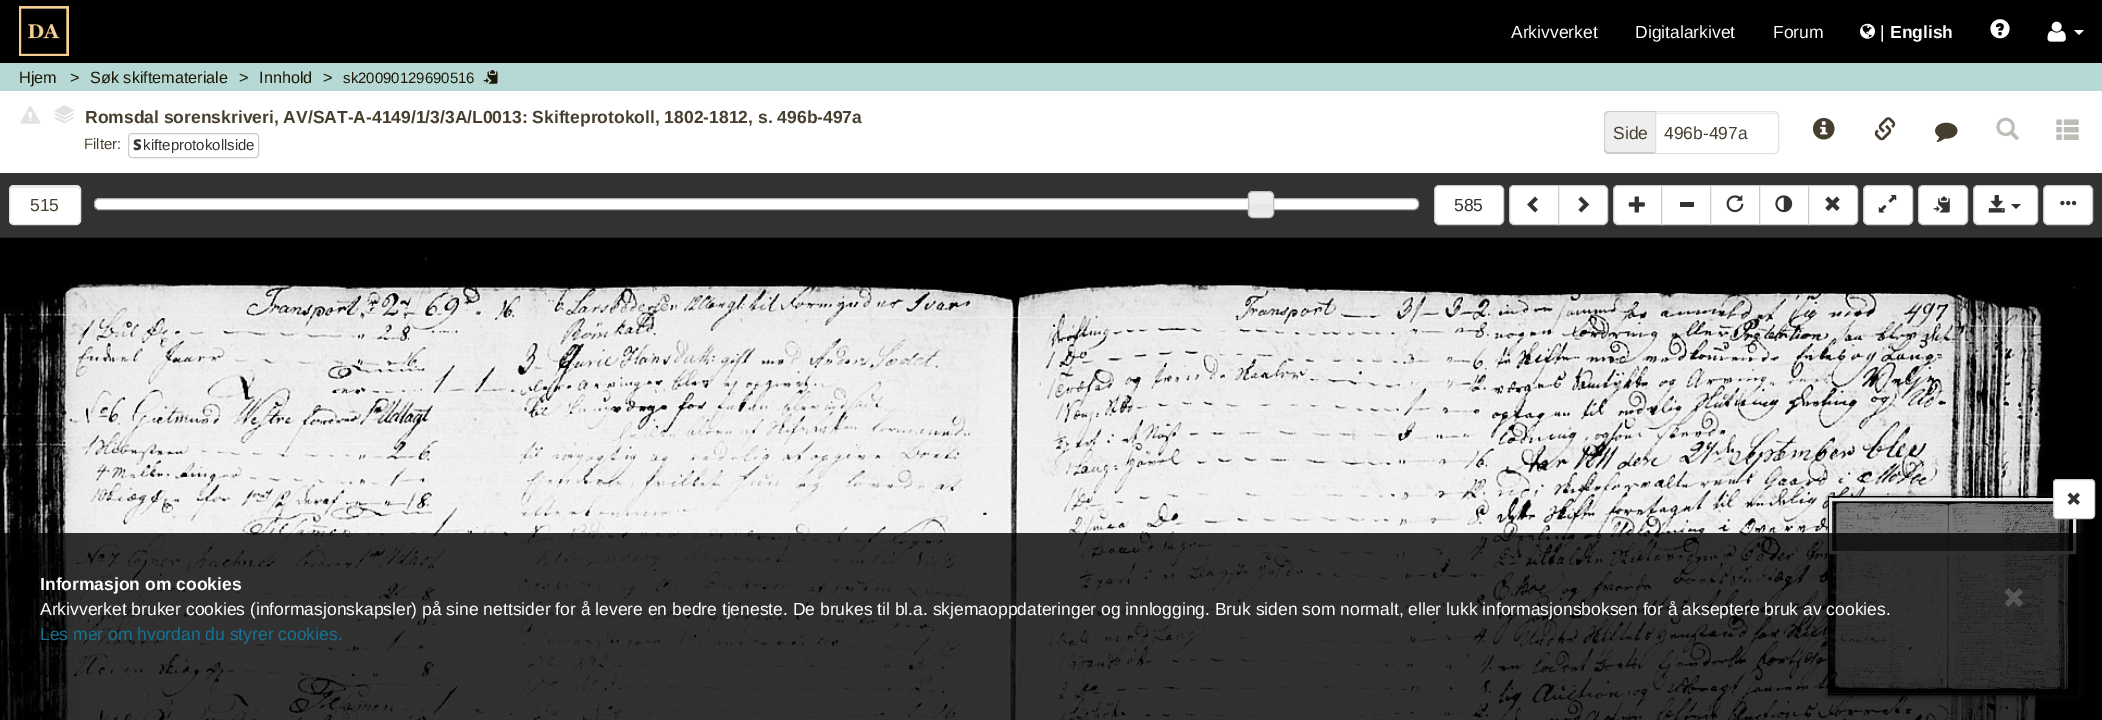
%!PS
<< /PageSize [2102 720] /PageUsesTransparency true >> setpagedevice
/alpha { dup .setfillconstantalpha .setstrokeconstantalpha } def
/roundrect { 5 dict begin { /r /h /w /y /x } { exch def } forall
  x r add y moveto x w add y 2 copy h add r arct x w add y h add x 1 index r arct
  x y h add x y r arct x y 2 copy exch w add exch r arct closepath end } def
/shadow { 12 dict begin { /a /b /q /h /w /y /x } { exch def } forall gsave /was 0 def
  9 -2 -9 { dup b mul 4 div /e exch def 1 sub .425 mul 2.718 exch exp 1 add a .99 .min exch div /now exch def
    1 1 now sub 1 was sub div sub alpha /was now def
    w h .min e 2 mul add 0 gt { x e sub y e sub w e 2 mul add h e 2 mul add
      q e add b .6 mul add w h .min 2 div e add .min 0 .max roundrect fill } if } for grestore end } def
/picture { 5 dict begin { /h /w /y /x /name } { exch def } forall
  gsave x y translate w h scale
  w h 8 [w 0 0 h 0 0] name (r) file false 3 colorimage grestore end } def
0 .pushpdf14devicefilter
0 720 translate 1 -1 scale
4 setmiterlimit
0.714 0.851 0.839 setrgbcolor
0 0 2102 720 rectfill
0 setgray
0 0 2102 63 rectfill
(img1.rgb) 19 6 50 50 picture
/LiberationSans-Regular [17.5 0 0 -17.5 0 0] selectfont
1 setgray
1511 38 moveto (Arkivverket) show
1635 38 moveto (Digitalarkivet) show
1773 38 moveto (Forum) show
(img2.rgb) 1860 23 15 16 picture
1880 38 moveto (|) show
/LiberationSans-Bold [17.5 0 0 -17.5 0 0] selectfont
1890 38 moveto (English) show
(img3.rgb) 1990 19 20 20 picture
(img4.rgb) 2047 21 19 21 picture
newpath 2074 30 moveto 2084 30 lineto 2079 35 lineto closepath fill
/LiberationSans-Regular [16.25 0 0 -16.25 0 0] selectfont
0.114 0.09 0.02 setrgbcolor
19 83 moveto (Hjem) show
70 83 moveto (>) show
90 83 moveto (Søk skiftemateriale) show
239 83 moveto (>) show
259 83 moveto (Innhold) show
323 83 moveto (>) show
/LiberationSans-Regular [15 0 0 -15 0 0] selectfont
343 83 moveto (sk20090129690516) show
(img5.rgb) 483 70 15 14 picture
1 setgray
0 91 2102 82 rectfill
(img6.rgb) 20 105 21 19 picture
(img11.rgb) 54 116 21 8 picture
(img10.rgb) 56 115 17 6 picture
(img9.rgb) 54 113 20 7 picture
(img8.rgb) 56 111 17 7 picture
(img7.rgb) 54 105 21 11 picture
/LiberationSans-Bold [17.5 0 0 -17.5 0 0] selectfont
0.275 0.243 0.184 setrgbcolor
85 123 moveto (Romsdal sorenskriveri, AV/SAT-A-4149/1/3/3A/L0013: Skifteprotokoll, 1802-1812, s. 496b-497a) show
/LiberationSans-Regular [15 0 0 -15 0 0] selectfont
84 149 moveto (Filter:) show
0.8 setgray
128.5 133.5 130 24 3.5 roundrect stroke
/NotoSans-Black [15 0 0 -15 0 0] selectfont
0.2 setgray
133 150 moveto (S) show
/LiberationSans-Regular [15 0 0 -15 0 0] selectfont
143 150 moveto (kifteprotokollside) show
0.933 setgray
newpath 1609 111 moveto 1655 111 lineto 1655 154 lineto 1609 154 lineto 1606 154 1604 152 1604 149 curveto 1604 116 lineto 1604 113 1606 111 1609 111 curveto closepath fill
0.8 setgray
newpath 1609 111 moveto 1655 111 lineto 1655 154 lineto 1609 154 lineto 1606 154 1604 152 1604 149 curveto 1604 116 lineto 1604 113 1606 111 1609 111 curveto closepath 1609 112 moveto 1655 112 lineto 1655 152 lineto 1609 152 lineto 1607 152 1605 151 1605 149 curveto 1605 116 lineto 1605 114 1607 112 1609 112 curveto closepath eofill
/LiberationSans-Regular [17.5 0 0 -17.5 0 0] selectfont
0.275 0.243 0.184 setrgbcolor
1613 139 moveto (Side) show
0.925 setgray
newpath 1656 114 moveto 1774 114 lineto 1776 114 1778 115 1778 118 curveto 1778 117 lineto 1778 115 1776 113 1774 113 curveto 1656 113 lineto closepath fill
0.89 0.886 0.878 setrgbcolor
newpath 1655.5 111.5 moveto 1774 111.5 lineto 1776.5 111.5 1778.5 113.5 1778.5 116 curveto 1778.5 149 lineto 1778.5 151.5 1776.5 153.5 1774 153.5 curveto 1655.5 153.5 lineto closepath stroke
0.275 0.243 0.184 setrgbcolor
1664 139 moveto (496b-497a) show
(img12.rgb) 1812 117 23 23 picture
(img13.rgb) 1874 117 22 24 picture
(img14.rgb) 1935 122 23 20 picture
(img15.rgb) 1996 117 23 24 picture
(img16.rgb) 2056 119 23 21 picture
0.2 0.196 0.192 setrgbcolor
0 173 2102 65 rectfill
1 setgray
9 185 72 40 5 roundrect fill
0.925 setgray
newpath 14 188 moveto 76 188 lineto 78 188 80 189 80 191 curveto 80 184 71 186 66 186 curveto 24 186 lineto 19 186 10 184 10 191 curveto 10 189 12 188 14 188 curveto closepath fill
0.89 0.886 0.878 setrgbcolor
9.5 185.5 71 39 4.5 roundrect stroke
0.275 0.243 0.184 setrgbcolor
30 211 moveto (515) show
1 setgray
94.5 198.5 1324 11 4.5 roundrect gsave fill grestore
0.667 setgray
stroke
(img17.rgb) 1247 191 27 27 picture
0.749 0.745 0.741 setrgbcolor
1248.5 191.5 25 26 4.5 roundrect stroke
1 setgray
1434.5 185.5 69 39 4.5 roundrect gsave fill grestore
0.8 setgray
stroke
0.2 setgray
1454 211 moveto (585) show
1 setgray
newpath 1514 185.5 moveto 1558.5 185.5 lineto 1558.5 224.5 lineto 1514 224.5 lineto 1511.5 224.5 1509.5 222.5 1509.5 220 curveto 1509.5 190 lineto 1509.5 187.5 1511.5 185.5 1514 185.5 curveto closepath gsave fill grestore
0.8 setgray
stroke
(img18.rgb) 1527 196 11 17 picture
1 setgray
newpath 1558.5 185.5 moveto 1603 185.5 lineto 1605.5 185.5 1607.5 187.5 1607.5 190 curveto 1607.5 220 lineto 1607.5 222.5 1605.5 224.5 1603 224.5 curveto 1558.5 224.5 lineto closepath gsave fill grestore
0.8 setgray
stroke
(img19.rgb) 1578 196 12 17 picture
1 setgray
newpath 1618 185.5 moveto 1662.5 185.5 lineto 1662.5 224.5 lineto 1618 224.5 lineto 1615.5 224.5 1613.5 222.5 1613.5 220 curveto 1613.5 190 lineto 1613.5 187.5 1615.5 185.5 1618 185.5 curveto closepath gsave fill grestore
0.8 setgray
stroke
(img20.rgb) 1628 196 17 17 picture
1 setgray
newpath 1661.5 185.5 moveto 1710.5 185.5 lineto 1710.5 224.5 lineto 1661.5 224.5 lineto closepath gsave fill grestore
0.8 setgray
stroke
0.2 setgray
1680 202 14 5 rectfill
1 setgray
newpath 1710.5 185.5 moveto 1759.5 185.5 lineto 1759.5 224.5 lineto 1710.5 224.5 lineto closepath gsave fill grestore
0.8 setgray
stroke
(img21.rgb) 1726 195 18 18 picture
1 setgray
newpath 1759.5 185.5 moveto 1808.5 185.5 lineto 1808.5 224.5 lineto 1759.5 224.5 lineto closepath gsave fill grestore
0.8 setgray
stroke
(img22.rgb) 1775 195 18 18 picture
1 setgray
newpath 1808.5 185.5 moveto 1853 185.5 lineto 1855.5 185.5 1857.5 187.5 1857.5 190 curveto 1857.5 220 lineto 1857.5 222.5 1855.5 224.5 1853 224.5 curveto 1808.5 224.5 lineto closepath gsave fill grestore
0.8 setgray
stroke
(img23.rgb) 1825 196 15 15 picture
1 setgray
1863.5 185.5 49 39 4.5 roundrect gsave fill grestore
0.8 setgray
stroke
(img24.rgb) 1878 195 19 18 picture
1 setgray
1918.5 185.5 49 39 4.5 roundrect gsave fill grestore
0.8 setgray
stroke
(img25.rgb) 1933 196 17 17 picture
1 setgray
1973.5 185.5 64 39 4.5 roundrect gsave fill grestore
0.8 setgray
stroke
(img26.rgb) 1988 195 17 18 picture
0.2 setgray
newpath 2011 204 moveto 2021 204 lineto 2016 209 lineto closepath fill
1 setgray
2043.5 185.5 49 39 4.5 roundrect gsave fill grestore
0.8 setgray
stroke
(img27.rgb) 2060 200 17 6 picture
(img28.rgb) 0 237 2102 483 picture
gsave
newpath 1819 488 moveto 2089 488 lineto 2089 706 lineto 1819 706 lineto closepath 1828 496 moveto 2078 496 lineto 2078 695 lineto 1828 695 lineto closepath eoclip newpath
0.196 setgray
1829 498 250 198 0 3 1 shadow
grestore
0 setgray
1828.5 496.5 249 198 rectstroke
(img29.rgb) 1828 497 244 197 picture
0.5 alpha
1829 502 241 52 rectfill
0.9 alpha
1 setgray
3 setlinewidth
1830.5 499.5 244 53 rectstroke
1 alpha
0 setgray
2053 480 42 40 4 0.5 0.1 shadow
1 setgray
2053.5 479.5 41 39 3.5 roundrect gsave fill grestore
0.8 setgray
1 setlinewidth
stroke
(img30.rgb) 2067 492 13 13 picture
0.8 alpha
0 setgray
0 533 2084 187 rectfill
/LiberationSans-Bold [17.5 0 0 -17.5 0 0] selectfont
1 alpha
1 setgray
40 590 moveto (Informasjon om cookies) show
(img31.rgb) 2004 588 19 19 picture
/LiberationSans-Regular [17.5 0 0 -17.5 0 0] selectfont
40 615 moveto (Arkivverket bruker cookies \(informasjonskapsler\) på sine nettsider for å levere en bedre tjeneste. De brukes til bl.a. skjemaoppdateringer og innlogging. Bruk siden som normalt, eller lukk informasjonsboksen for å akseptere bruk av cookies.) show
0.09 0.451 0.569 setrgbcolor
40 640 moveto (Les mer om hvordan du styrer cookies.) show
.poppdf14devicefilter showpage
